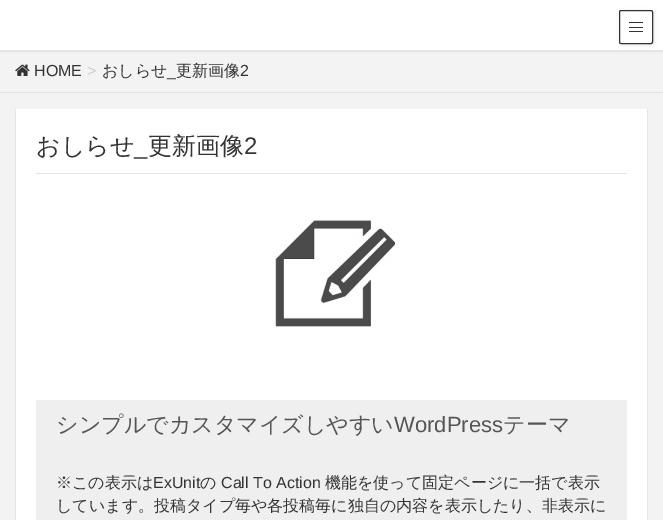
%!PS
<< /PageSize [663 520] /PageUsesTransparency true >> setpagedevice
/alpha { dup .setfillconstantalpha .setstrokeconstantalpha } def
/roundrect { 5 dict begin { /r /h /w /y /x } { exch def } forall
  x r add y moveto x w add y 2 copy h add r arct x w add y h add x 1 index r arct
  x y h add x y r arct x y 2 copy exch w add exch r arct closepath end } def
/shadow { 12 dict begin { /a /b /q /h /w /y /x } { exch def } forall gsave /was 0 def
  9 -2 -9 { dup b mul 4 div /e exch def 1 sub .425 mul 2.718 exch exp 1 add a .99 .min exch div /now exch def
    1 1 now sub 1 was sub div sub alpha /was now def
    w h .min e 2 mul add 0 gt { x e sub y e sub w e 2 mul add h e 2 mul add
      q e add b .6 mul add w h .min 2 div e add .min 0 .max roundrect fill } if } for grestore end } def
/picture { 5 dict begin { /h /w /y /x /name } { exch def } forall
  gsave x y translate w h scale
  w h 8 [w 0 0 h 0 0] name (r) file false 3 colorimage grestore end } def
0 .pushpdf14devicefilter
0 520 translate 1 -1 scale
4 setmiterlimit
0.953 setgray
0 0 663 520 rectfill
0 setgray
0 1 663 50 0 1.5 0.1 shadow
1 setgray
0 0 663 50 rectfill
0 setgray
620 11 34 34 2 2 0.1 shadow
1 setgray
619 10 34 34 2 roundrect fill
0.2 setgray
629 22 14 1 rectfill
629 27 14 1 rectfill
629 31 14 1 rectfill
619.5 10.5 33 33 1.5 roundrect stroke
0.898 setgray
0 92 663 1 rectfill
(img1.rgb) 15 64 15 12 picture
/LiberationSans-Regular [16 0 0 -16 0 0] selectfont
0.2 setgray
34 76 moveto (HOME) show
0.8 setgray
87 76 moveto (>) show
/WenQuanYiZenHei-Medium [16 0 0 -16 0 0] selectfont
0.2 setgray
102 76 moveto (おしらせ) show
/LiberationSans-Regular [16 0 0 -16 0 0] selectfont
167 76 moveto (_) show
/WenQuanYiZenHei-Medium [16 0 0 -16 0 0] selectfont
176 76 moveto (更新画像) show
/LiberationSans-Regular [16 0 0 -16 0 0] selectfont
240 76 moveto (2) show
1 setgray
16 109 631 411 rectfill
0.898 setgray
647 109 1 411 rectfill
15 109 1 411 rectfill
36 173 591 1 rectfill
/WenQuanYiZenHei-Medium [24 0 0 -24 0 0] selectfont
0.2 setgray
36 154 moveto (おしらせ) show
148 154 moveto (更新画像) show
/LiberationSans-Regular [24 0 0 -24 0 0] selectfont
244 154 moveto (2) show
134 154 moveto (_) show
(img2.rgb) 275 220 120 107 picture
0.937 setgray
36 400 591 120 rectfill
/WenQuanYiZenHei-Medium [22 0 0 -22 0 0] selectfont
0.333 setgray
56 432 moveto (シンプルでカスタマイズしやすい) show
/LiberationSans-Regular [22 0 0 -22 0 0] selectfont
394 432 moveto (WordPress) show
/WenQuanYiZenHei-Medium [22 0 0 -22 0 0] selectfont
503 432 moveto (テーマ) show
/WenQuanYiZenHei-Medium [16 0 0 -16 0 0] selectfont
0.2 setgray
56 488 moveto (※この表示は) show
/LiberationSans-Regular [16 0 0 -16 0 0] selectfont
153 488 moveto (ExUnit) show
/WenQuanYiZenHei-Medium [16 0 0 -16 0 0] selectfont
200 488 moveto (の) show
/LiberationSans-Regular [16 0 0 -16 0 0] selectfont
221 488 moveto (Call To Action) show
/WenQuanYiZenHei-Medium [16 0 0 -16 0 0] selectfont
325 488 moveto (機能を使って固定ページに一括で表示) show
56 511 moveto (しています。投稿タイプ毎や各投稿毎に独自の内容を表示したり、非表示に) show
.poppdf14devicefilter showpage
